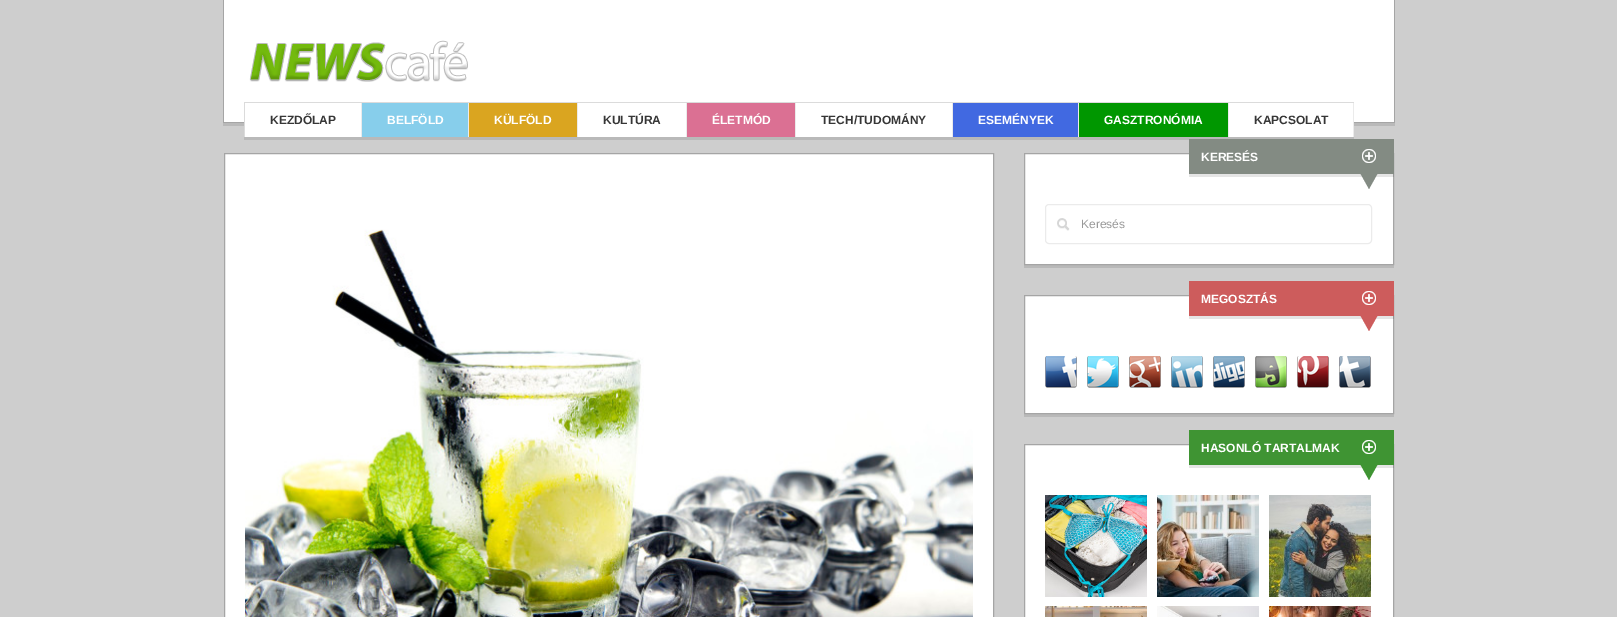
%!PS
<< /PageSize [1617 617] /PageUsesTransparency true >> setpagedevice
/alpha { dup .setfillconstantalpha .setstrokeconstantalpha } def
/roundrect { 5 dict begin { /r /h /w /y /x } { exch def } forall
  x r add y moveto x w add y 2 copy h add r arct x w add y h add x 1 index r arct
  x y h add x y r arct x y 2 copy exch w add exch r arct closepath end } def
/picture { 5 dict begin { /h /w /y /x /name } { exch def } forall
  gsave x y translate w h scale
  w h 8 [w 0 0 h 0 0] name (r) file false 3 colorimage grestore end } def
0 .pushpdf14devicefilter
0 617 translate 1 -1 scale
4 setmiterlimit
0.808 setgray
0 0 1617 617 rectfill
0.725 setgray
223 123 1172 3 rectfill
1 setgray
224 0 1170 122 rectfill
0.647 setgray
1394 0 1 123 rectfill
223 122 1172 1 rectfill
223 0 1 123 rectfill
(img1.rgb) 249 40 219 42 picture
0.725 setgray
244 137 1110 3 rectfill
1 setgray
245 122 1108 15 rectfill
0.859 setgray
244 102 1110 1 rectfill
244 102 1 35 rectfill
0.922 setgray
361 103 1 34 rectfill
/LiberationSans-Bold [12 0 0 -12 0 0] selectfont
0.212 setgray
270 124 moveto (KEZDŐLAP) show
0.529 0.808 0.922 setrgbcolor
362 103 106 34 rectfill
0.922 setgray
468 103 1 34 rectfill
1 setgray
387 124 moveto (BELFÖLD) show
0.855 0.647 0.125 setrgbcolor
469 103 108 34 rectfill
0.922 setgray
577 103 1 34 rectfill
1 setgray
494 124 moveto (KÜLFÖLD) show
0.922 setgray
686 103 1 34 rectfill
0.212 setgray
603 124 moveto (KULTÚRA) show
0.859 0.439 0.576 setrgbcolor
687 103 108 34 rectfill
0.922 setgray
795 103 1 34 rectfill
1 setgray
712 124 moveto (ÉLETMÓD) show
0.922 setgray
952 103 1 34 rectfill
0.212 setgray
821 124 moveto (TECH/TUDOMÁNY) show
0.255 0.412 0.882 setrgbcolor
953 103 125 34 rectfill
0.922 setgray
1078 103 1 34 rectfill
1 setgray
978 124 moveto (ESEMÉNYEK) show
0 0.592 0 setrgbcolor
1079 103 149 34 rectfill
0.922 setgray
1228 103 1 34 rectfill
1 setgray
1104 124 moveto (GASZTRONÓMIA) show
0.922 setgray
1353 103 1 34 rectfill
0.212 setgray
1254 124 moveto (KAPCSOLAT) show
1 setgray
newpath 224.5 153.5 moveto 993.5 153.5 lineto 993.5 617.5 lineto 224.5 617.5 lineto closepath gsave fill grestore
0.647 setgray
stroke
(img2.rgb) 245 229 728 388 picture
0.725 setgray
1024 265 370 3 rectfill
1 setgray
newpath 1024.5 153.5 moveto 1393.5 153.5 lineto 1393.5 264.5 lineto 1024.5 264.5 lineto closepath gsave fill grestore
0.647 setgray
stroke
0.1 alpha
0 setgray
1189 174 205 3 rectfill
1 alpha
0.514 0.545 0.514 setrgbcolor
1189 139 205 35 rectfill
1 setgray
1201 161 moveto (KERESÉS) show
(img3.rgb) 1362 149 14 14 picture
0.514 0.545 0.514 setrgbcolor
newpath 1359 171 moveto 1379 171 lineto 1369 189 lineto closepath fill
(img4.rgb) 1057 218 13 13 picture
0.922 setgray
1045.5 204.5 326 39 3.5 roundrect stroke
/LiberationSans-Regular [12 0 0 -12 0 0] selectfont
0.6 setgray
1081 228 moveto (Keresés) show
0.725 setgray
1024 414 370 3 rectfill
1 setgray
newpath 1024.5 295.5 moveto 1393.5 295.5 lineto 1393.5 413.5 lineto 1024.5 413.5 lineto closepath gsave fill grestore
0.647 setgray
stroke
0.1 alpha
0 setgray
1189 316 205 3 rectfill
1 alpha
0.804 0.361 0.361 setrgbcolor
1189 281 205 35 rectfill
/LiberationSans-Bold [12 0 0 -12 0 0] selectfont
1 setgray
1201 303 moveto (MEGOSZTÁS) show
(img5.rgb) 1362 291 14 14 picture
0.804 0.361 0.361 setrgbcolor
newpath 1359 313 moveto 1379 313 lineto 1369 331 lineto closepath fill
(img6.rgb) 1045 356 32 32 picture
(img7.rgb) 1087 356 32 32 picture
(img8.rgb) 1129 356 32 32 picture
(img9.rgb) 1171 356 32 32 picture
(img10.rgb) 1213 356 32 32 picture
(img11.rgb) 1255 356 32 32 picture
(img12.rgb) 1297 356 32 32 picture
(img13.rgb) 1339 356 32 32 picture
1 setgray
newpath 1024.5 444.5 moveto 1393.5 444.5 lineto 1393.5 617.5 lineto 1024.5 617.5 lineto closepath gsave fill grestore
0.647 setgray
stroke
0.1 alpha
0 setgray
1189 465 205 3 rectfill
1 alpha
0.247 0.58 0.2 setrgbcolor
1189 430 205 35 rectfill
1 setgray
1201 452 moveto (HASONLÓ TARTALMAK) show
(img14.rgb) 1362 440 14 14 picture
0.247 0.58 0.2 setrgbcolor
newpath 1359 462 moveto 1379 462 lineto 1369 480 lineto closepath fill
(img15.rgb) 1045 495 102 102 picture
(img16.rgb) 1157 495 102 102 picture
(img17.rgb) 1269 495 102 102 picture
(img18.rgb) 1045 606 102 11 picture
(img19.rgb) 1157 606 102 11 picture
(img20.rgb) 1269 606 102 11 picture
.poppdf14devicefilter showpage
